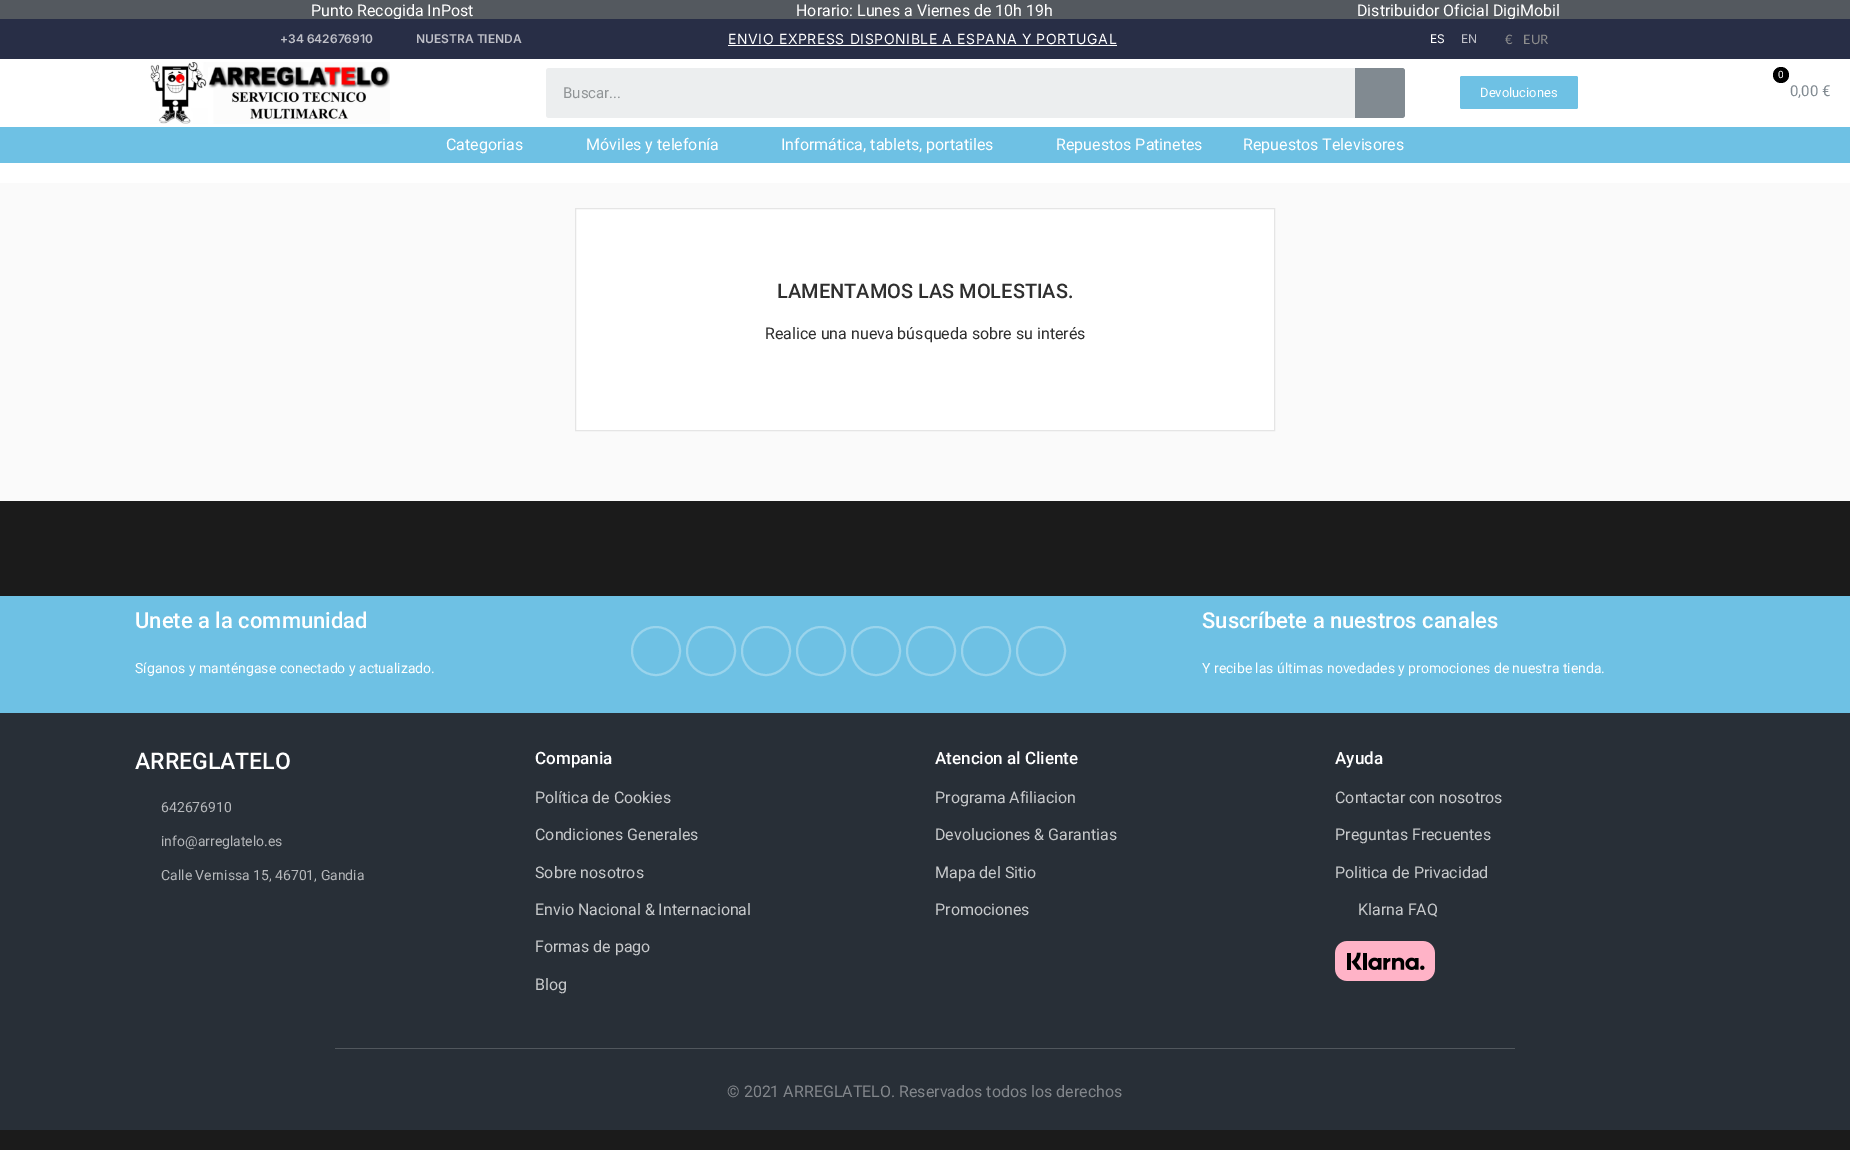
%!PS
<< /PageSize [1850 1150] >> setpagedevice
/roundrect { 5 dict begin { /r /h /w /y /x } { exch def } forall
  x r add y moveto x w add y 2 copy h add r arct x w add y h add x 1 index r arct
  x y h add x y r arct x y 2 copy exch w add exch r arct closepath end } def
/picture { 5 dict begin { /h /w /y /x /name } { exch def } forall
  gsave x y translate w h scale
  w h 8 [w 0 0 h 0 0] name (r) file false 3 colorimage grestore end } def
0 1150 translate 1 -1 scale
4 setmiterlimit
0.98 setgray
0 0 1850 1150 rectfill
1 setgray
0 59 1850 124 rectfill
0.329 0.349 0.373 setrgbcolor
0 0 1850 19 rectfill
/Roboto-Regular [16 0 0 -16 0 0] selectfont
1 setgray
311 16 moveto (Punto Recogida InPost) show
796 16 moveto (Horario: Lunes a Viernes de 10h 19h) show
1357 16 moveto (Distribuidor Oficial DigiMobil) show
0.157 0.18 0.275 setrgbcolor
0 19 1850 40 rectfill
/Inter-SemiBold [12 0 0 -12 0 0] selectfont
0.749 0.753 0.784 setrgbcolor
280 43 moveto (+34 642676910) show
416 43 moveto (NUESTRA TIENDA) show
/Inter-Regular [14 0 0 -14 0 0] selectfont
1 setgray
728 44 moveto 0.6 0 (ENVIO EXPRESS DISPONIBLE A ESPANA Y PORTUGAL) ashow
728 45 389 1 rectfill
/Inter-Regular [12 0 0 -12 0 0] selectfont
1430 43 moveto (ES) show
0.749 0.753 0.784 setrgbcolor
1461 43 moveto (EN) show
/Lato-Regular [13 0 0 -13 0 0] selectfont
0.557 setgray
1505 44 moveto (€) show
1523 44 moveto (EUR) show
(img1.rgb) 150 62 240 62 picture
0.925 0.933 0.937 setrgbcolor
546 68 859 50 3 roundrect fill
/Roboto-Regular [15 0 0 -15 0 0] selectfont
0.569 0.584 0.592 setrgbcolor
563 98 moveto (Buscar...) show
0.506 0.541 0.569 setrgbcolor
newpath 1355 68 moveto 1402 68 lineto 1403.5 68 1405 69.5 1405 71 curveto 1405 115 lineto 1405 116.5 1403.5 118 1402 118 curveto 1355 118 lineto closepath fill
0.431 0.757 0.894 setrgbcolor
1460 76 118 33 2 roundrect fill
/Roboto-Regular [13 0 0 -13 0 0] selectfont
1 setgray
1480 97 moveto (Devoluciones) show
0 setgray
newpath 1781 75 8 0 360 arc closepath fill
/Roboto-Regular [10 0 0 -10 0 0] selectfont
1 setgray
1778 78 moveto (0) show
/Roboto-Regular [15 0 0 -15 0 0] selectfont
0.506 0.541 0.569 setrgbcolor
1790 96 moveto (0,00 €) show
0.431 0.757 0.894 setrgbcolor
0 127 1850 36 rectfill
/Roboto-Regular [16 0 0 -16 0 0] selectfont
1 setgray
446 150 moveto (Categorias) show
586 150 moveto (Móviles y telefonía) show
781 150 moveto (Informática, tablets, portatiles) show
1056 150 moveto (Repuestos Patinetes) show
1243 150 moveto (Repuestos Televisores) show
newpath 575.5 208.5 moveto 1274.5 208.5 lineto 1274.5 430.5 lineto 575.5 430.5 lineto closepath gsave fill grestore
0.898 setgray
stroke
/Roboto-Medium [20 0 0 -20 0 0] selectfont
0.184 setgray
777 298 moveto (LAMENTAMOS LAS MOLESTIAS.) show
/Roboto-Regular [16 0 0 -16 0 0] selectfont
765 339 moveto (Realice una nueva búsqueda sobre su interés) show
0.106 setgray
0 501 1850 649 rectfill
0.431 0.757 0.894 setrgbcolor
0 596 1850 117 rectfill
/Roboto-Medium [22 0 0 -22 0 0] selectfont
1 setgray
135 628 moveto (Unete a la communidad) show
/Roboto-Regular [14 0 0 -14 0 0] selectfont
135 673 moveto (Síganos y manténgase conectado y actualizado.) show
0.604 0.831 0.925 setrgbcolor
2 setlinewidth
newpath 656 651 24 0 360 arc closepath stroke
newpath 711 651 24 0 360 arc closepath stroke
newpath 766 651 24 0 360 arc closepath stroke
newpath 821 651 24 0 360 arc closepath stroke
newpath 876 651 24 0 360 arc closepath stroke
newpath 931 651 24 0 360 arc closepath stroke
newpath 986 651 24 0 360 arc closepath stroke
newpath 1041 651 24 0 360 arc closepath stroke
/Roboto-Medium [22 0 0 -22 0 0] selectfont
1 setgray
1202 628 moveto (Suscríbete a nuestros canales) show
/Roboto-Regular [14 0 0 -14 0 0] selectfont
1202 673 moveto (Y recibe las últimas novedades y promociones de nuestra tienda.) show
0.157 0.184 0.216 setrgbcolor
0 713 1850 417 rectfill
/Roboto-Medium [23 0 0 -23 0 0] selectfont
1 setgray
135 769 moveto (ARREGLATELO) show
/Roboto-Regular [14 0 0 -14 0 0] selectfont
0.714 0.722 0.733 setrgbcolor
161 812 moveto (642676910) show
161 846 moveto (info@arreglatelo.es) show
161 880 moveto (Calle Vernissa 15, 46701, Gandia) show
/Roboto-Medium [17 0 0 -17 0 0] selectfont
1 setgray
535 764 moveto (Compania) show
/Roboto-Regular [16 0 0 -16 0 0] selectfont
0.78 0.788 0.796 setrgbcolor
535 803 moveto (Política de Cookies) show
535 840 moveto (Condiciones Generales) show
535 878 moveto (Sobre nosotros) show
535 915 moveto (Envio Nacional & Internacional) show
535 952 moveto (Formas de pago) show
535 990 moveto (Blog) show
/Roboto-Medium [17 0 0 -17 0 0] selectfont
1 setgray
935 764 moveto (Atencion al Cliente) show
/Roboto-Regular [16 0 0 -16 0 0] selectfont
0.78 0.788 0.796 setrgbcolor
935 803 moveto (Programa Afiliacion) show
935 840 moveto (Devoluciones & Garantias) show
935 878 moveto (Mapa del Sitio) show
935 915 moveto (Promociones) show
/Roboto-Medium [17 0 0 -17 0 0] selectfont
1 setgray
1335 764 moveto (Ayuda) show
/Roboto-Regular [16 0 0 -16 0 0] selectfont
0.78 0.788 0.796 setrgbcolor
1335 803 moveto (Contactar con nosotros) show
1335 840 moveto (Preguntas Frecuentes) show
1335 878 moveto (Politica de Privacidad) show
1358 915 moveto (Klarna FAQ) show
(img2.rgb) 1335 941 100 40 picture
0.318 0.341 0.365 setrgbcolor
335 1048 1180 1 rectfill
0.51 0.525 0.545 setrgbcolor
727 1097 moveto (© 2021 ARREGLATELO. Reservados todos los derechos) show
showpage
